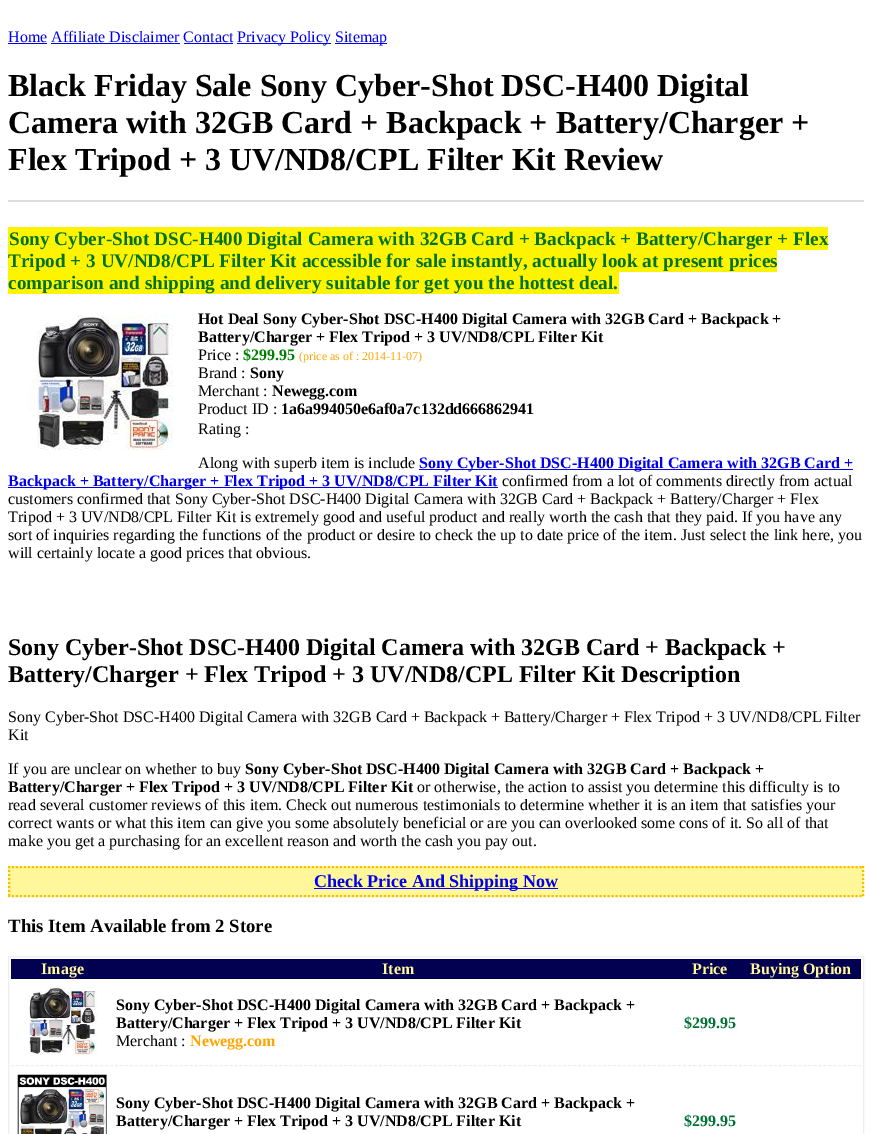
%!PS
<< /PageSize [872 1134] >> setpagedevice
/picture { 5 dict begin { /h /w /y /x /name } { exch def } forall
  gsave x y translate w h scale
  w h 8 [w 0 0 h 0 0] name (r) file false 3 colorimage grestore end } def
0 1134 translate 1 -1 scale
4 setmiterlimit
1 setgray
0 0 872 1134 rectfill
/LiberationSerif-Regular [16 0 0 -16 0 0] selectfont
0 0 0.933 setrgbcolor
8 42 moveto (Home Affiliate Disclaimer Contact) show
8 43 39 1 rectfill
237 43 94 1 rectfill
237 42 moveto (Privacy Policy) show
335 43 52 1 rectfill
335 42 moveto (Sitemap) show
51 43 129 1 rectfill
184 43 49 1 rectfill
/LiberationSerif-Bold [32 0 0 -32 0 0] selectfont
0 setgray
8 96 moveto (Black Friday Sale Sony Cyber-Shot DSC-H400 Digital) show
8 133 moveto (Camera with 32GB Card + Backpack + Battery/Charger +) show
8 170 moveto (Flex Tripod + 3 UV/ND8/CPL Filter Kit Review) show
0.867 setgray
8 200 856 2 rectfill
1 0.957 0 setrgbcolor
8 227 820 23 rectfill
/LiberationSerif-Bold [19.2 0 0 -19.2 0 0] selectfont
0 0.447 0.133 setrgbcolor
9 245 moveto (Sony Cyber-Shot DSC-H400 Digital Camera with 32GB Card + Backpack + Battery/Charger + Flex) show
1 0.957 0 setrgbcolor
8 250 769 22 rectfill
0 0.447 0.133 setrgbcolor
8 267 moveto (Tripod + 3 UV/ND8/CPL Filter Kit accessible for sale instantly, actually look at present prices) show
1 0.957 0 setrgbcolor
8 272 611 22 rectfill
0 0.447 0.133 setrgbcolor
8 289 moveto (comparison and shipping and delivery suitable for get you the hottest deal.) show
(img1.rgb) 29 315 144 135 picture
/LiberationSerif-Bold [16 0 0 -16 0 0] selectfont
0 setgray
198 324 moveto (Hot Deal Sony Cyber-Shot DSC-H400 Digital Camera with 32GB Card + Backpack +) show
198 342 moveto (Battery/Charger + Flex Tripod + 3 UV/ND8/CPL Filter Kit) show
/LiberationSerif-Regular [16 0 0 -16 0 0] selectfont
198 360 moveto (Price :) show
/LiberationSerif-Bold [16 0 0 -16 0 0] selectfont
0 0.502 0 setrgbcolor
243 360 moveto ($299.95) show
/LiberationSerif-Regular [12 0 0 -12 0 0] selectfont
1 0.647 0 setrgbcolor
299 360 moveto (\(price as of : 2014-11-07\)) show
/LiberationSerif-Regular [16 0 0 -16 0 0] selectfont
0 setgray
198 378 moveto (Brand :) show
/LiberationSerif-Bold [16 0 0 -16 0 0] selectfont
250 378 moveto (Sony) show
/LiberationSerif-Regular [16 0 0 -16 0 0] selectfont
198 396 moveto (Merchant :) show
/LiberationSerif-Bold [16 0 0 -16 0 0] selectfont
272 396 moveto (Newegg.com) show
/LiberationSerif-Regular [16 0 0 -16 0 0] selectfont
198 414 moveto (Product ID :) show
/LiberationSerif-Bold [16 0 0 -16 0 0] selectfont
281 414 moveto (1a6a994050e6af0a7c132dd666862941) show
/LiberationSerif-Regular [16 0 0 -16 0 0] selectfont
198 434 moveto (Rating :) show
198 468 moveto (Along with superb item is include) show
0 0 0.933 setrgbcolor
419 469 434 1 rectfill
/LiberationSerif-Bold [16 0 0 -16 0 0] selectfont
419 468 moveto (Sony Cyber-Shot DSC-H400 Digital Camera with 32GB Card +) show
8 487 490 1 rectfill
8 486 moveto (Backpack + Battery/Charger + Flex Tripod + 3 UV/ND8/CPL Filter Kit) show
/LiberationSerif-Regular [16 0 0 -16 0 0] selectfont
0 setgray
502 486 moveto (confirmed from a lot of comments directly from actual) show
8 504 moveto (customers confirmed that Sony Cyber-Shot DSC-H400 Digital Camera with 32GB Card + Backpack + Battery/Charger + Flex) show
8 522 moveto (Tripod + 3 UV/ND8/CPL Filter Kit is extremely good and useful product and really worth the cash that they paid. If you have any) show
8 540 moveto (sort of inquiries regarding the functions of the product or desire to check the up to date price of the item. Just select the link here, you) show
8 558 moveto (will certainly locate a good prices that obvious.) show
/LiberationSerif-Bold [24 0 0 -24 0 0] selectfont
8 655 moveto (Sony Cyber-Shot DSC-H400 Digital Camera with 32GB Card + Backpack +) show
8 682 moveto (Battery/Charger + Flex Tripod + 3 UV/ND8/CPL Filter Kit Description) show
/LiberationSerif-Regular [16 0 0 -16 0 0] selectfont
8 722 moveto (Sony Cyber-Shot DSC-H400 Digital Camera with 32GB Card + Backpack + Battery/Charger + Flex Tripod + 3 UV/ND8/CPL Filter) show
8 740 moveto (Kit) show
8 774 moveto (If you are unclear on whether to buy) show
/LiberationSerif-Bold [16 0 0 -16 0 0] selectfont
245 774 moveto (Sony Cyber-Shot DSC-H400 Digital Camera with 32GB Card + Backpack +) show
8 792 moveto (Battery/Charger + Flex Tripod + 3 UV/ND8/CPL Filter Kit) show
/LiberationSerif-Regular [16 0 0 -16 0 0] selectfont
417 792 moveto (or otherwise, the action to assist you determine this difficulty is to) show
8 810 moveto (read several customer reviews of this item. Check out numerous testimonials to determine whether it is an item that satisfies your) show
8 828 moveto (correct wants or what this item can give you some absolutely beneficial or are you can overlooked some cons of it. So all of that) show
8 846 moveto (make you get a purchasing for an excellent reason and worth the cash you pay out.) show
1 0.969 0.6 setrgbcolor
8 866 856 31 rectfill
0.98 0.745 0 setrgbcolor
2 setlinewidth
[2 2] 0 setdash
newpath 8 867 moveto 864 867 lineto stroke
newpath 863 866 moveto 863 897 lineto stroke
newpath 8 896 moveto 864 896 lineto stroke
newpath 9 866 moveto 9 897 lineto stroke
0 0 0.933 setrgbcolor
314 888 244 1 rectfill
/LiberationSerif-Bold [18 0 0 -18 0 0] selectfont
314 887 moveto (Check Price And Shipping Now) show
/LiberationSerif-Bold [18.75 0 0 -18.75 0 0] selectfont
0 setgray
8 932 moveto (This Item Available from 2 Store) show
0.933 setgray
1 setlinewidth
[] 0 setdash
8.5 956.5 855 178 rectstroke
0.008 0 0.314 setrgbcolor
11 959 850 20 rectfill
/LiberationSerif-Bold [16 0 0 -16 0 0] selectfont
1 0.969 0.6 setrgbcolor
41 974 moveto (Image) show
382 974 moveto (Item) show
692 974 moveto (Price) show
750 974 moveto (Buying Option) show
0.933 setgray
[3 1.95] 0 setdash
newpath 11 1065.5 moveto 113 1065.5 lineto stroke
(img2.rgb) 25 987 72 68 picture
[3 1.98] 0 setdash
newpath 115 1065.5 moveto 681 1065.5 lineto stroke
0 setgray
116 1010 moveto (Sony Cyber-Shot DSC-H400 Digital Camera with 32GB Card + Backpack +) show
116 1028 moveto (Battery/Charger + Flex Tripod + 3 UV/ND8/CPL Filter Kit) show
/LiberationSerif-Regular [16 0 0 -16 0 0] selectfont
116 1046 moveto (Merchant :) show
/LiberationSerif-Bold [16 0 0 -16 0 0] selectfont
1 0.647 0 setrgbcolor
190 1046 moveto (Newegg.com) show
0.922 setgray
[3 2.1] 0 setdash
newpath 683 1065.5 moveto 737 1065.5 lineto stroke
0 0.447 0.212 setrgbcolor
684 1028 moveto ($299.95) show
0.933 setgray
[3 1.96] 0 setdash
newpath 739 1065.5 moveto 861 1065.5 lineto stroke
(img3.rgb) 17 1074 90 60 picture
0 setgray
116 1108 moveto (Sony Cyber-Shot DSC-H400 Digital Camera with 32GB Card + Backpack +) show
116 1126 moveto (Battery/Charger + Flex Tripod + 3 UV/ND8/CPL Filter Kit) show
0 0.447 0.212 setrgbcolor
684 1126 moveto ($299.95) show
showpage
